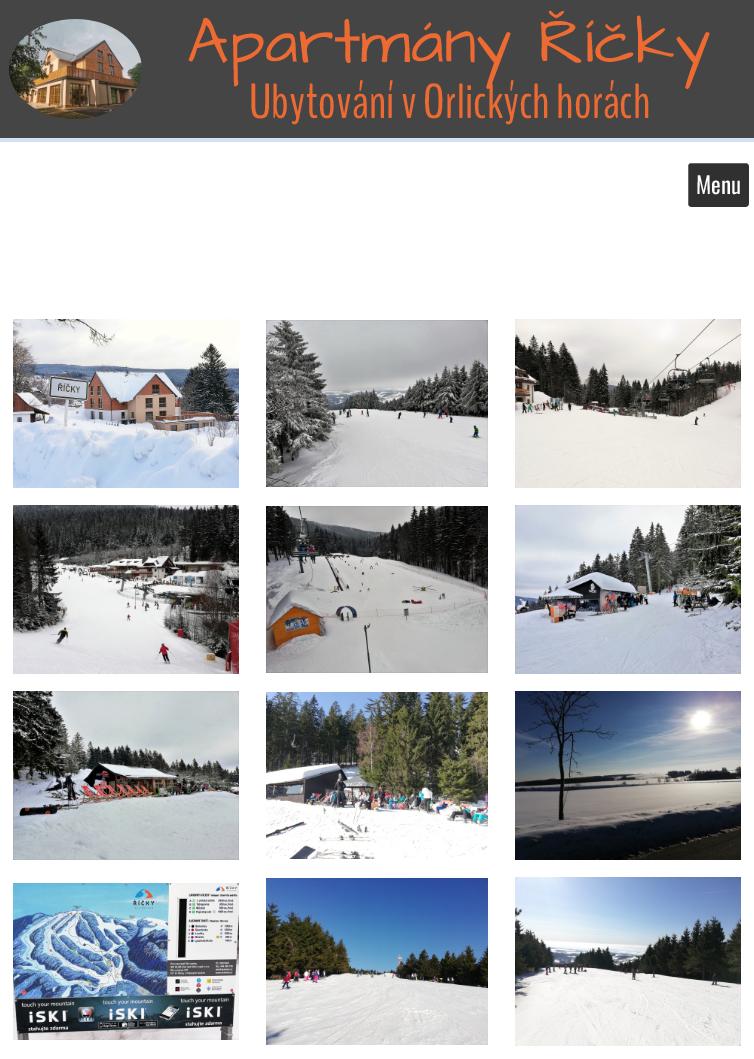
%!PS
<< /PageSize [754 1059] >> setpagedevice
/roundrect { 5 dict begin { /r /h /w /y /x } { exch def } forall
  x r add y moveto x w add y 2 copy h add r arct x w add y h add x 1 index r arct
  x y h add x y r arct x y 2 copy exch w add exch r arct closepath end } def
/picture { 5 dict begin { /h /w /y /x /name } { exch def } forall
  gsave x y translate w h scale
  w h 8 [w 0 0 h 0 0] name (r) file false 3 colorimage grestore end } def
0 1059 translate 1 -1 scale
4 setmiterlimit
0.812 0.886 0.953 setrgbcolor
0 0 754 1059 rectfill
0.271 setgray
0 0 754 138 rectfill
(img1.rgb) 9 19 133 100 picture
/ArchitectsDaughter-Regular [65 0 0 -65 0 0] selectfont
0.929 0.416 0.196 setrgbcolor
187 62 moveto (Apartmány Říčky) show
/BenchNine-Regular [49 0 0 -49 0 0] selectfont
249 118 moveto (Ubytování v Orlických horách) show
1 setgray
0 142 754 917 rectfill
0.188 setgray
687.5 162.5 62 45 3.5 roundrect gsave fill grestore
1 setgray
stroke
/Oswald-Regular [23 0 0 -23 0 0] selectfont
696 194 moveto (Menu) show
(img2.rgb) 13 319 226 169 picture
(img3.rgb) 266 320 222 167 picture
(img4.rgb) 515 319 226 169 picture
(img5.rgb) 13 505 226 169 picture
(img6.rgb) 266 506 222 167 picture
(img7.rgb) 515 505 226 169 picture
(img8.rgb) 13 691 226 169 picture
(img9.rgb) 266 692 222 167 picture
(img10.rgb) 515 691 226 169 picture
(img11.rgb) 13 883 226 157 picture
(img12.rgb) 266 878 222 167 picture
(img13.rgb) 515 877 226 169 picture
showpage
